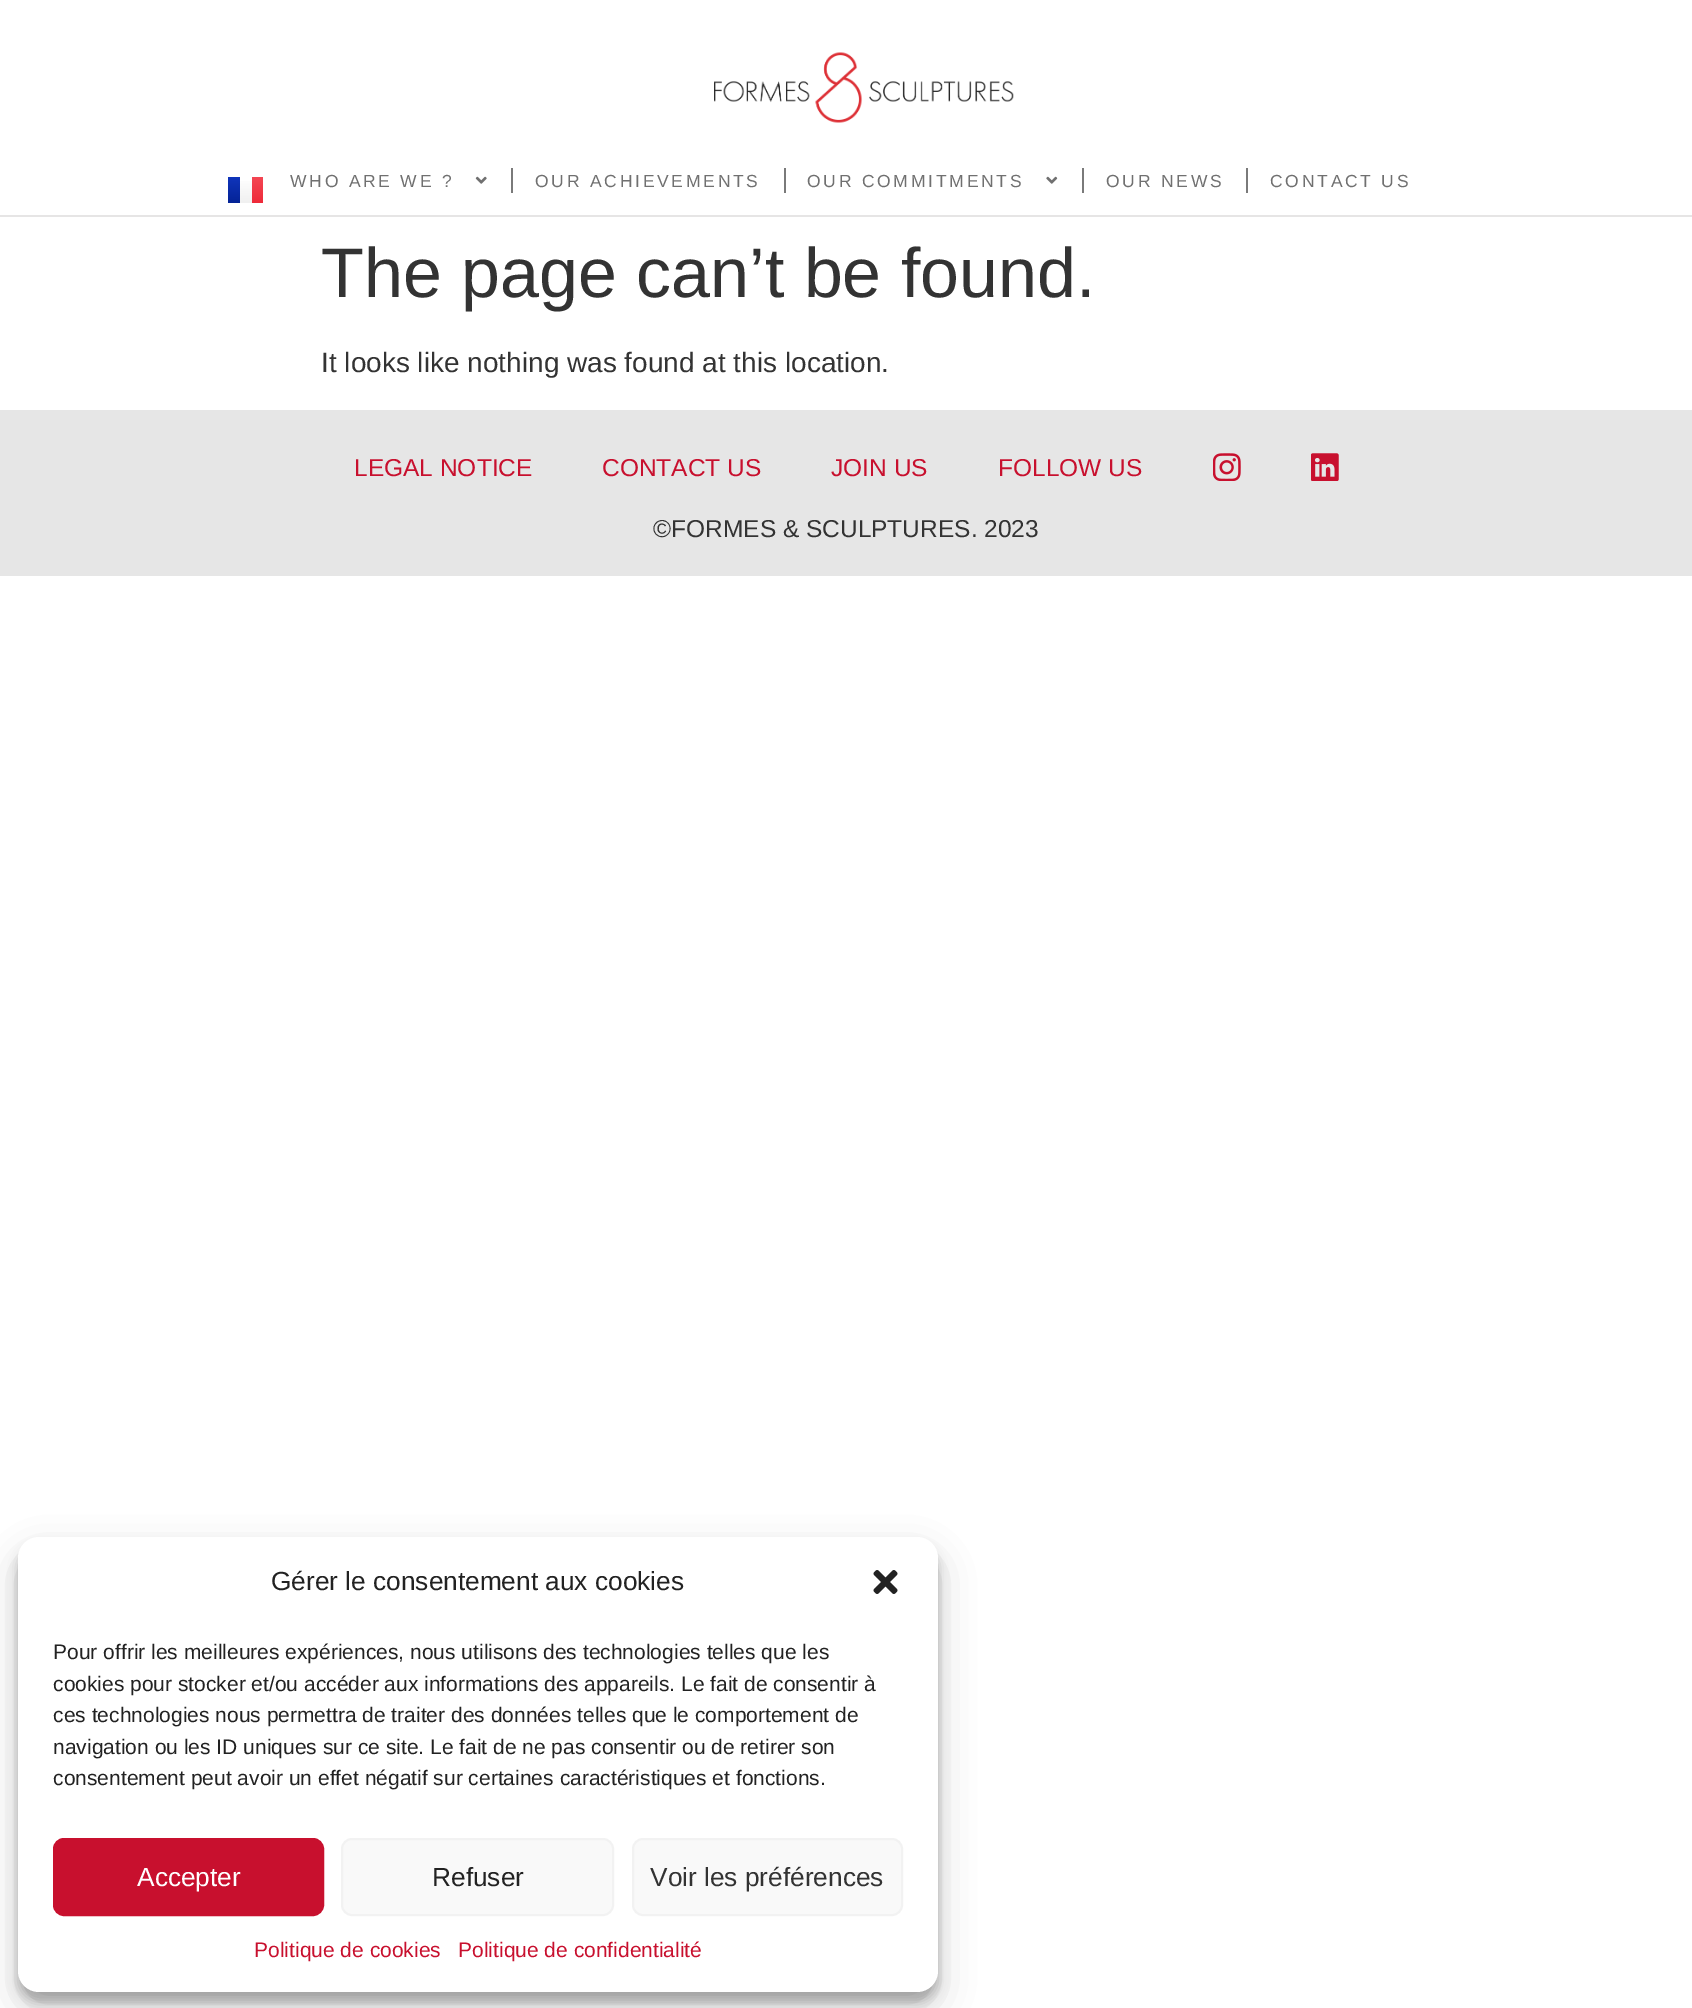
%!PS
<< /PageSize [1692 2008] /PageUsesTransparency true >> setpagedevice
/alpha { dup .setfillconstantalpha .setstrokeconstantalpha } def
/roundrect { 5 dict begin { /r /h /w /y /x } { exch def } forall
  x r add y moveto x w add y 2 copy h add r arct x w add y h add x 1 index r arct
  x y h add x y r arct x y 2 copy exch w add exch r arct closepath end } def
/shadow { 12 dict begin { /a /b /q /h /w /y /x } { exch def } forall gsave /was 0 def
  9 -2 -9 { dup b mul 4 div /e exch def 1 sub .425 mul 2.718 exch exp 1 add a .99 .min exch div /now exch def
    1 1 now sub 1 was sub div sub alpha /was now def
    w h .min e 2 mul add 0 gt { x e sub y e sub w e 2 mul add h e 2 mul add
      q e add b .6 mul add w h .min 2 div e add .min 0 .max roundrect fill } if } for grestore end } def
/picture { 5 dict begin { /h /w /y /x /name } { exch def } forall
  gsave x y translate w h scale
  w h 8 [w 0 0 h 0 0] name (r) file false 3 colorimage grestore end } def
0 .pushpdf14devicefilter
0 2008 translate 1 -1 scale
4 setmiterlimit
1 setgray
0 0 1692 2008 rectfill
0.902 0.898 0.898 setrgbcolor
0 215 1692 2 rectfill
(img1.rgb) 714 52 300 71 picture
gsave newpath 228 177 moveto 240 177 lineto 240 203 lineto 228 203 lineto closepath clip newpath
<< /ShadingType 2 /ColorSpace /DeviceRGB /Coords [234 177 234 203] /Extend [true true] /Function << /FunctionType 2 /Domain [0 1] /C0 [0.063 0.208 0.733] /C1 [0.016 0.137 0.588] /N 1 >> >> shfill grestore
gsave newpath 240 181 moveto 252 181 lineto 252 203 lineto 240 203 lineto closepath clip newpath
<< /ShadingType 2 /ColorSpace /DeviceRGB /Coords [246 177 246 203] /Extend [true true] /Function << /FunctionType 2 /Domain [0 1] /C0 [1 1 1] /C1 [0.941 0.941 0.941] /N 1 >> >> shfill grestore
gsave newpath 252 177 moveto 263 177 lineto 263 203 lineto 252 203 lineto closepath clip newpath
<< /ShadingType 2 /ColorSpace /DeviceRGB /Coords [255 177 255 203] /Extend [true true] /Function << /FunctionType 2 /Domain [0 1] /C0 [0.957 0.275 0.325] /C1 [0.933 0.165 0.224] /N 1 >> >> shfill grestore
/LiberationSans-Regular [17.5 0 0 -17.5 0 0] selectfont
0.439 setgray
290 187 moveto 2.75 0 (WHO ARE WE ?) ashow
(img2.rgb) 475 176 12 8 picture
0.478 setgray
511 168 2 25 rectfill
0.439 setgray
535 187 moveto 2.75 0 (OUR ACHIEVEMENTS) ashow
0.478 setgray
784 168 2 25 rectfill
0.439 setgray
807 187 moveto 2.75 0 (OUR COMMITMENTS) ashow
(img3.rgb) 1046 176 12 8 picture
0.478 setgray
1082 168 2 25 rectfill
0.439 setgray
1106 187 moveto 2.75 0 (OUR NEWS) ashow
0.478 setgray
1246 168 2 25 rectfill
0.439 setgray
1270 187 moveto 2.75 0 (CONTACT US) ashow
/LiberationSans-Regular [70 0 0 -70 0 0] selectfont
0.2 setgray
321 297 moveto (The page can’t be found.) show
/LiberationSans-Regular [28 0 0 -28 0 0] selectfont
321 372 moveto (It looks like nothing was found at this location.) show
0.902 setgray
0 410 1692 166 rectfill
/LiberationSans-Regular [24.5 0 0 -24.5 0 0] selectfont
0.784 0.063 0.18 setrgbcolor
354 476 moveto (LEGAL NOTICE) show
602 476 moveto (CONTACT US) show
831 476 moveto (JOIN US) show
998 476 moveto (FOLLOW US) show
(img4.rgb) 1213 453 28 28 picture
(img5.rgb) 1311 453 28 28 picture
0.2 setgray
653 537 moveto (©FORMES & SCULPTURES. 2023) show
0 setgray
18 1547 920 455 21 5 0.23 shadow
18 1554 920 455 21 17.5 0.19 shadow
1 setgray
18 1537 920 455 21 roundrect fill
/LiberationSans-Regular [26.25 0 0 -26.25 0 0] selectfont
0.133 setgray
271 1590 moveto (Gérer le consentement aux cookies) show
(img6.rgb) 873 1570 25 24 picture
/LiberationSans-Regular [21 0 0 -21 0 0] selectfont
53 1659 moveto (Pour offrir les meilleures expériences, nous utilisons des technologies telles que les) show
53 1691 moveto (cookies pour stocker et/ou accéder aux informations des appareils. Le fait de consentir à) show
53 1722 moveto (ces technologies nous permettra de traiter des données telles que le comportement de) show
53 1754 moveto (navigation ou les ID uniques sur ce site. Le fait de ne pas consentir ou de retirer son) show
53 1785 moveto (consentement peut avoir un effet négatif sur certaines caractéristiques et fonctions.) show
0.784 0.063 0.18 setrgbcolor
54 1839 269 76 10 roundrect gsave fill grestore
2 setlinewidth
stroke
/LiberationSans-Regular [26.25 0 0 -26.25 0 0] selectfont
1 setgray
137 1886 moveto (Accepter) show
0.976 setgray
342 1839 271 76 10 roundrect gsave fill grestore
0.949 setgray
stroke
0.133 setgray
432 1886 moveto (Refuser) show
0.976 setgray
633 1839 269 76 10 roundrect gsave fill grestore
0.949 setgray
stroke
0.2 setgray
650 1886 moveto (Voir les préférences) show
/LiberationSans-Regular [21 0 0 -21 0 0] selectfont
0.784 0.063 0.18 setrgbcolor
254 1957 moveto (Politique de cookies) show
458 1957 moveto (Politique de confidentialité) show
.poppdf14devicefilter showpage
